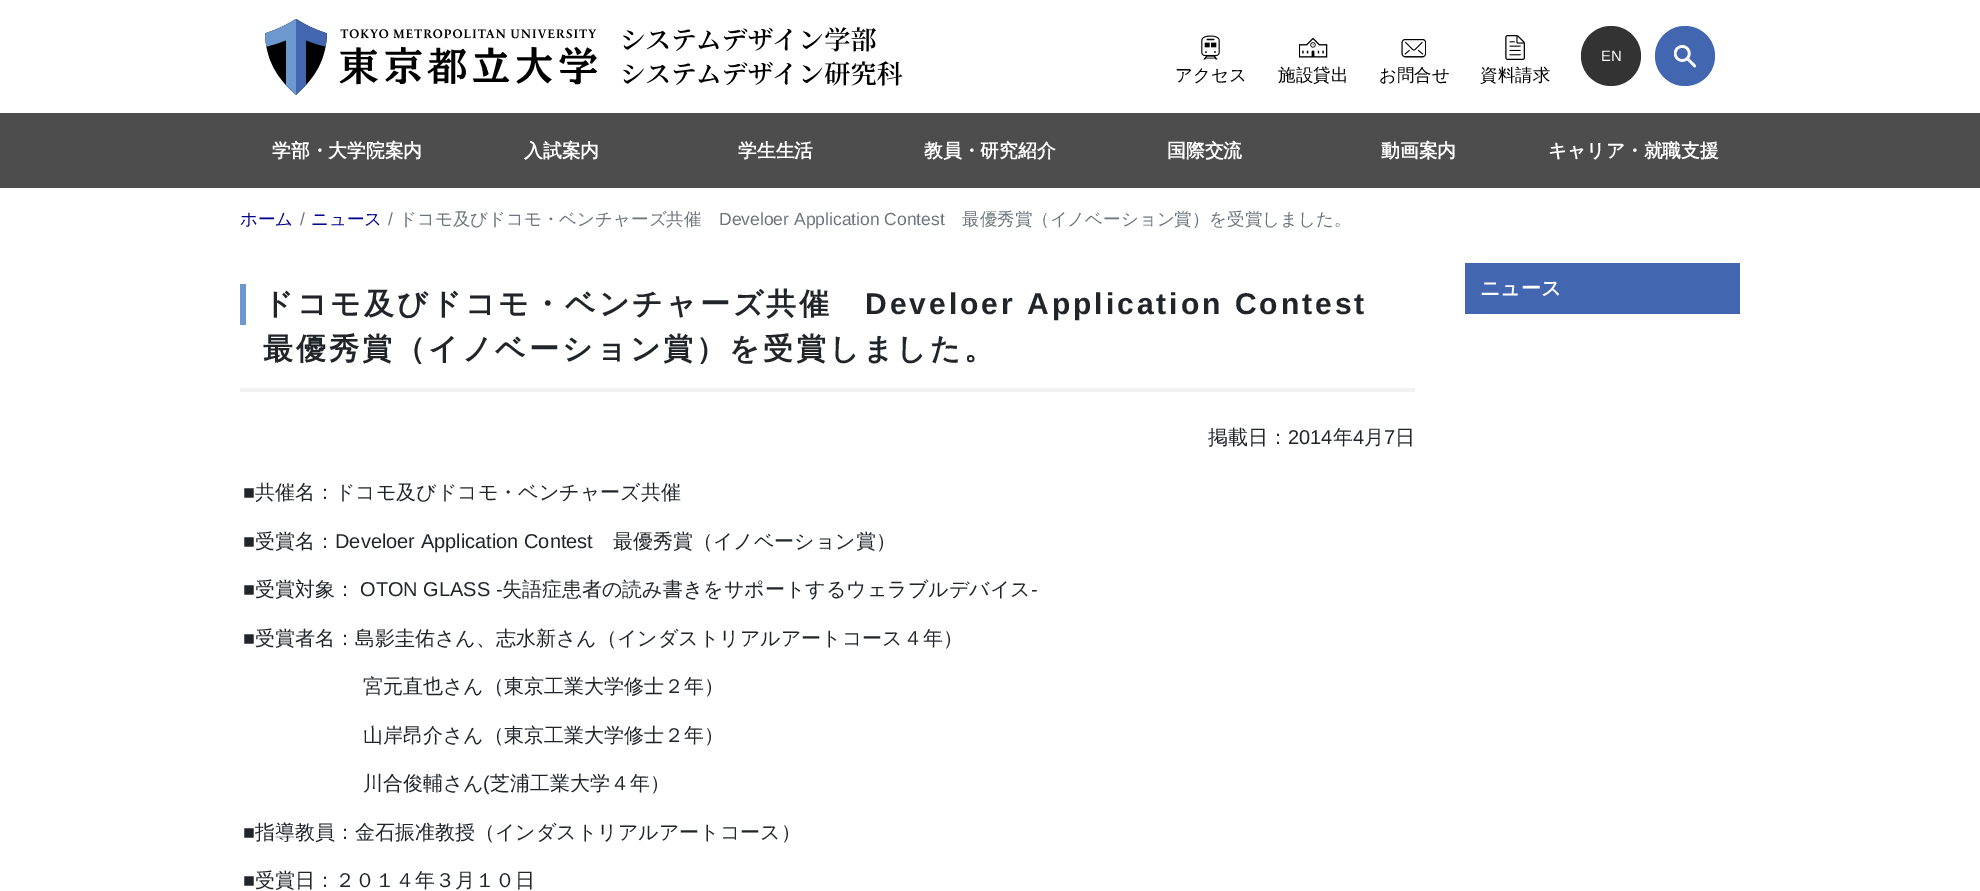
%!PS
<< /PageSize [1980 891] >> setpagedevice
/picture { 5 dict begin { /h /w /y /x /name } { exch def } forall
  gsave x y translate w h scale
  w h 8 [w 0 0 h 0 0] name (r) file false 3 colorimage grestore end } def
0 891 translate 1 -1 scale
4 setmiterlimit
1 setgray
0 0 1980 891 rectfill
(img1.rgb) 265 19 638 76 picture
0.2 setgray
newpath 1611 56 30 0 360 arc closepath fill
/LiberationSans-Regular [15 0 0 -15 0 0] selectfont
1 setgray
1601 61 moveto (EN) show
0.263 0.4 0.69 setrgbcolor
newpath 1685 56 30 0 360 arc closepath fill
(img2.rgb) 1674 45 22 23 picture
(img3.rgb) 1201 35 19 25 picture
/WenQuanYiZenHei-Medium [17.5 0 0 -17.5 0 0] selectfont
0 setgray
1175 81 moveto (アクセス) show
(img4.rgb) 1299 38 29 20 picture
1278 81 moveto (施設貸出) show
(img5.rgb) 1401 39 25 19 picture
1379 81 moveto (お問合せ) show
(img6.rgb) 1505 35 20 25 picture
1480 81 moveto (資料請求) show
0.302 setgray
0 113 1980 75 rectfill
/WenQuanYiZenHei-Bold [18.75 0 0 -18.75 0 0] selectfont
1 setgray
272 157 moveto (学部・大学院案内) show
524 157 moveto (入試案内) show
738 157 moveto (学生生活) show
924 157 moveto (教員・研究紹介) show
1167 157 moveto (国際交流) show
1381 157 moveto (動画案内) show
1548 157 moveto (キャリア・就職支援) show
/WenQuanYiZenHei-Medium [17.5 0 0 -17.5 0 0] selectfont
0 0 0.545 setrgbcolor
240 225 moveto (ホーム) show
/LiberationSans-Regular [17.5 0 0 -17.5 0 0] selectfont
0.424 0.459 0.49 setrgbcolor
300 225 moveto (/) show
/WenQuanYiZenHei-Medium [17.5 0 0 -17.5 0 0] selectfont
0 0 0.545 setrgbcolor
311 225 moveto (ニュース) show
/LiberationSans-Regular [17.5 0 0 -17.5 0 0] selectfont
0.424 0.459 0.49 setrgbcolor
388 225 moveto (/) show
/WenQuanYiZenHei-Medium [17.5 0 0 -17.5 0 0] selectfont
399 225 moveto (ドコモ及びドコモ・ベンチャーズ共催) show
/LiberationSans-Regular [17.5 0 0 -17.5 0 0] selectfont
719 225 moveto (Develoer Application Contest) show
/WenQuanYiZenHei-Medium [17.5 0 0 -17.5 0 0] selectfont
962 225 moveto (最優秀賞（イノベーション賞）を受賞しました。) show
0.949 setgray
240 388 1175 4 rectfill
0.427 0.592 0.812 setrgbcolor
240 284 6 41 rectfill
/WenQuanYiZenHei-Bold [30 0 0 -30 0 0] selectfont
0.129 0.145 0.161 setrgbcolor
263 314 moveto 3 0 (ドコモ及びドコモ・ベンチャーズ共催) ashow
/LiberationSans-Bold [30 0 0 -30 0 0] selectfont
865 314 moveto 3 0 (Develoer Application Contest) ashow
/WenQuanYiZenHei-Bold [30 0 0 -30 0 0] selectfont
263 359 moveto 3 0 (最優秀賞（イノベーション賞）を受賞しました。) ashow
/WenQuanYiZenHei-Medium [20 0 0 -20 0 0] selectfont
1208 444 moveto (掲載日：) show
/LiberationSans-Regular [20 0 0 -20 0 0] selectfont
1288 444 moveto (2014) show
/WenQuanYiZenHei-Medium [20 0 0 -20 0 0] selectfont
1333 444 moveto (年) show
/LiberationSans-Regular [20 0 0 -20 0 0] selectfont
1353 444 moveto (4) show
/WenQuanYiZenHei-Medium [20 0 0 -20 0 0] selectfont
1364 444 moveto (月) show
/LiberationSans-Regular [20 0 0 -20 0 0] selectfont
1384 444 moveto (7) show
/WenQuanYiZenHei-Medium [20 0 0 -20 0 0] selectfont
1395 444 moveto (日) show
/LiberationSans-Regular [20 0 0 -20 0 0] selectfont
243 499 moveto (■) show
/WenQuanYiZenHei-Medium [20 0 0 -20 0 0] selectfont
255 499 moveto (共催名：ドコモ及びドコモ・ベンチャーズ共催) show
/LiberationSans-Regular [20 0 0 -20 0 0] selectfont
243 548 moveto (■) show
/WenQuanYiZenHei-Medium [20 0 0 -20 0 0] selectfont
255 548 moveto (受賞名：) show
/LiberationSans-Regular [20 0 0 -20 0 0] selectfont
335 548 moveto (Develoer Application Contest) show
/WenQuanYiZenHei-Medium [20 0 0 -20 0 0] selectfont
613 548 moveto (最優秀賞（イノベーション賞）) show
/LiberationSans-Regular [20 0 0 -20 0 0] selectfont
243 596 moveto (■) show
/WenQuanYiZenHei-Medium [20 0 0 -20 0 0] selectfont
255 596 moveto (受賞対象：) show
/LiberationSans-Regular [20 0 0 -20 0 0] selectfont
360 596 moveto (OTON GLASS -) show
/WenQuanYiZenHei-Medium [20 0 0 -20 0 0] selectfont
502 596 moveto (失語症患者の読み書きをサポートするウェラブルデバイス) show
/LiberationSans-Regular [20 0 0 -20 0 0] selectfont
1031 596 moveto (-) show
243 645 moveto (■) show
/WenQuanYiZenHei-Medium [20 0 0 -20 0 0] selectfont
255 645 moveto (受賞者名：島影圭佑さん、志水新さん（インダストリアルアートコース４年）) show
363 693 moveto (宮元直也さん（東京工業大学修士２年）) show
363 742 moveto (山岸昂介さん（東京工業大学修士２年）) show
363 790 moveto (川合俊輔さん) show
/LiberationSans-Regular [20 0 0 -20 0 0] selectfont
483 790 moveto (\() show
/WenQuanYiZenHei-Medium [20 0 0 -20 0 0] selectfont
490 790 moveto (芝浦工業大学４年）) show
/LiberationSans-Regular [20 0 0 -20 0 0] selectfont
243 839 moveto (■) show
/WenQuanYiZenHei-Medium [20 0 0 -20 0 0] selectfont
255 839 moveto (指導教員：金石振准教授（インダストリアルアートコース）) show
/LiberationSans-Regular [20 0 0 -20 0 0] selectfont
243 887 moveto (■) show
/WenQuanYiZenHei-Medium [20 0 0 -20 0 0] selectfont
255 887 moveto (受賞日：２０１４年３月１０日) show
0.263 0.4 0.69 setrgbcolor
1465 263 275 51 rectfill
/WenQuanYiZenHei-Bold [20 0 0 -20 0 0] selectfont
1 setgray
1480 295 moveto (ニュース) show
showpage
